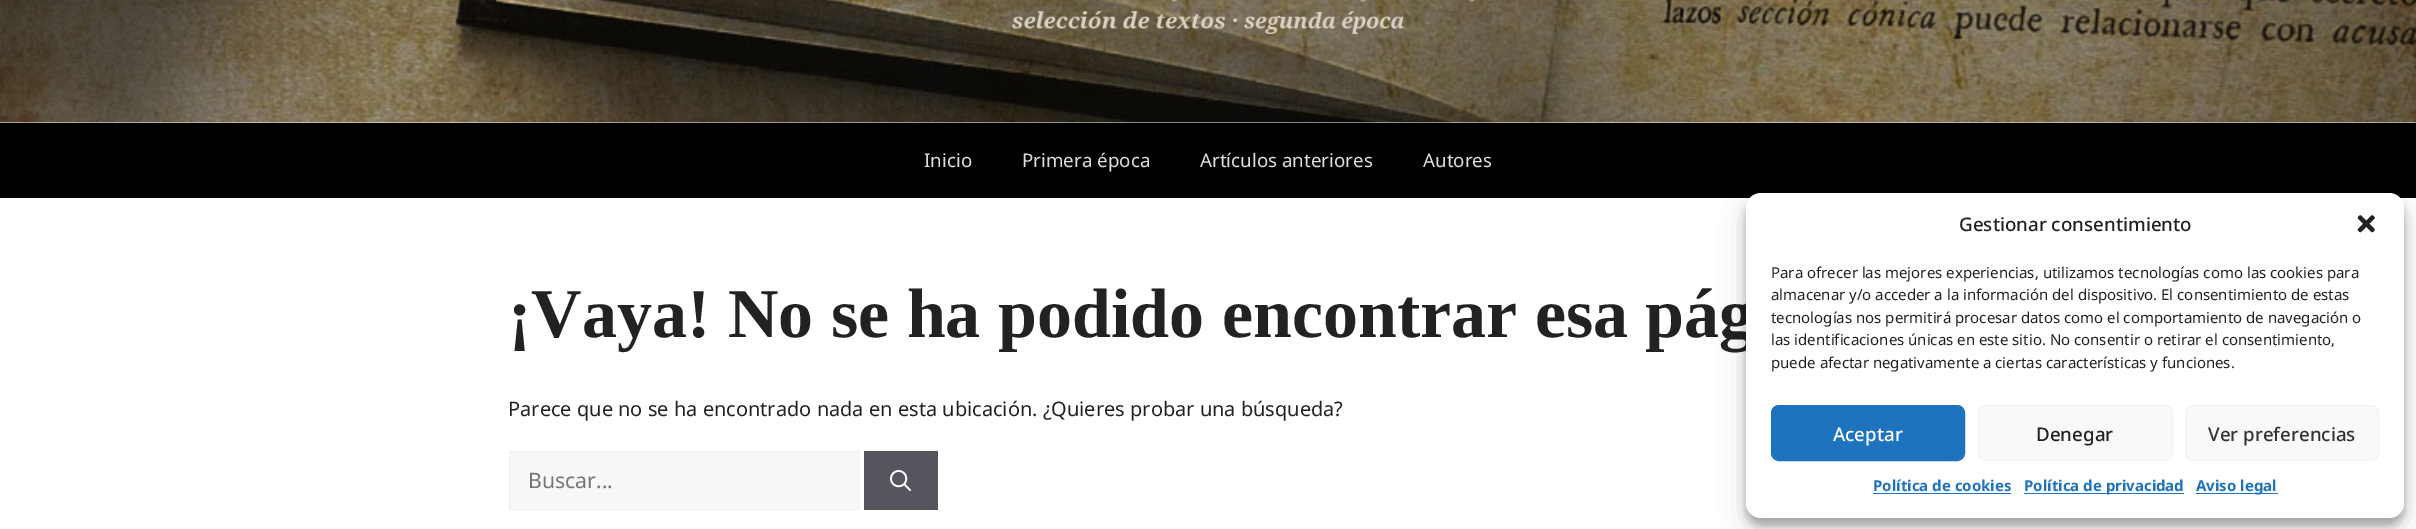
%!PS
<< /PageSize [2416 529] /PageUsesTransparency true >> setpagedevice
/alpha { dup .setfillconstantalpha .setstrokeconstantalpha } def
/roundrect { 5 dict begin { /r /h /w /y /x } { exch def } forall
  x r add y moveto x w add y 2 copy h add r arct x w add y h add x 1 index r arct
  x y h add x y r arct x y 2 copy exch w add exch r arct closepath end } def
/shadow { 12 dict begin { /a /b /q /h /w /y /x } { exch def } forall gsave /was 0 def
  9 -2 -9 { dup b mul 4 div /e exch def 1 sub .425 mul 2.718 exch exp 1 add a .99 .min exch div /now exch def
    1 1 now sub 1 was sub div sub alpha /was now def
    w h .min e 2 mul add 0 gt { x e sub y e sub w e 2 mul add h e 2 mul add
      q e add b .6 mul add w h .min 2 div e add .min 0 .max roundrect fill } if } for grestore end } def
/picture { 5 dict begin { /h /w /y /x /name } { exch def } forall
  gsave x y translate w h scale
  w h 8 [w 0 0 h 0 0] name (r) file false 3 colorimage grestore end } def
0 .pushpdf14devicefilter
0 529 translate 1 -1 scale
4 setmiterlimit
1 setgray
0 0 2416 529 rectfill
(img1.rgb) 0 0 2416 123 picture
(img2.rgb) 1011 0 464 34 picture
0 setgray
0 123 2416 75 rectfill
/NotoSans-Regular [18.75 0 0 -18.75 0 0] selectfont
0.867 setgray
924 167 moveto (Inicio) show
1022 167 moveto (Primera época) show
1200 167 moveto (Artículos anteriores) show
1423 167 moveto (Autores) show
/LiberationSerif-Bold [70 0 0 -70 0 0] selectfont
0.133 setgray
508 337 moveto (¡Vaya! No se ha podido encontrar esa pág) show
/NotoSans-Regular [20 0 0 -20 0 0] selectfont
508 416 moveto (Parece que no se ha encontrado nada en esta ubicación. ¿Quieres probar una búsqueda?) show
0.969 0.973 0.976 setrgbcolor
newpath 509.5 451.5 moveto 858.5 451.5 lineto 858.5 509.5 lineto 509.5 509.5 lineto closepath gsave fill grestore
0.941 setgray
stroke
/NotoSans-Regular [21.25 0 0 -21.25 0 0] selectfont
0.459 setgray
528 488 moveto (Buscar...) show
0.333 0.333 0.369 setrgbcolor
864 451 74 59 rectfill
(img3.rgb) 890 470 21 21 picture
0 setgray
1746 200 658 325 15 4 0.23 shadow
1746 205 658 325 15 12.5 0.19 shadow
1 setgray
1746 193 658 325 15 roundrect fill
/NotoSans-Medium [18.75 0 0 -18.75 0 0] selectfont
0.133 setgray
1959 231 moveto (Gestionar consentimiento) show
(img4.rgb) 2357 215 18 18 picture
/NotoSans-Regular [15 0 0 -15 0 0] selectfont
1771 278 moveto (Para ofrecer las mejores experiencias, utilizamos tecnologías como las cookies para) show
1771 300 moveto (almacenar y/o acceder a la información del dispositivo. El consentimiento de estas) show
1771 323 moveto (tecnologías nos permitirá procesar datos como el comportamiento de navegación o) show
1771 345 moveto (las identificaciones únicas en este sitio. No consentir o retirar el consentimiento,) show
1771 368 moveto (puede afectar negativamente a ciertas características y funciones.) show
0.118 0.451 0.745 setrgbcolor
1771.5 405.5 193 55 7.5 roundrect gsave fill grestore
stroke
/NotoSans-Medium [18.75 0 0 -18.75 0 0] selectfont
1 setgray
1833 441 moveto (Aceptar) show
0.976 setgray
1978.5 405.5 194 55 7.5 roundrect gsave fill grestore
0.949 setgray
stroke
0.133 setgray
2036 441 moveto (Denegar) show
0.976 setgray
2185.5 405.5 193 55 7.5 roundrect gsave fill grestore
0.949 setgray
stroke
0.2 setgray
2208 441 moveto (Ver preferencias) show
/NotoSans-Bold [15 0 0 -15 0 0] selectfont
0.118 0.451 0.745 setrgbcolor
1873 491 moveto (Política de cookies) show
1873 493 138 1 rectfill
2024 493 160 1 rectfill
2024 491 moveto (Política de privacidad) show
2196 493 82 1 rectfill
2196 491 moveto (Aviso legal) show
.poppdf14devicefilter showpage
